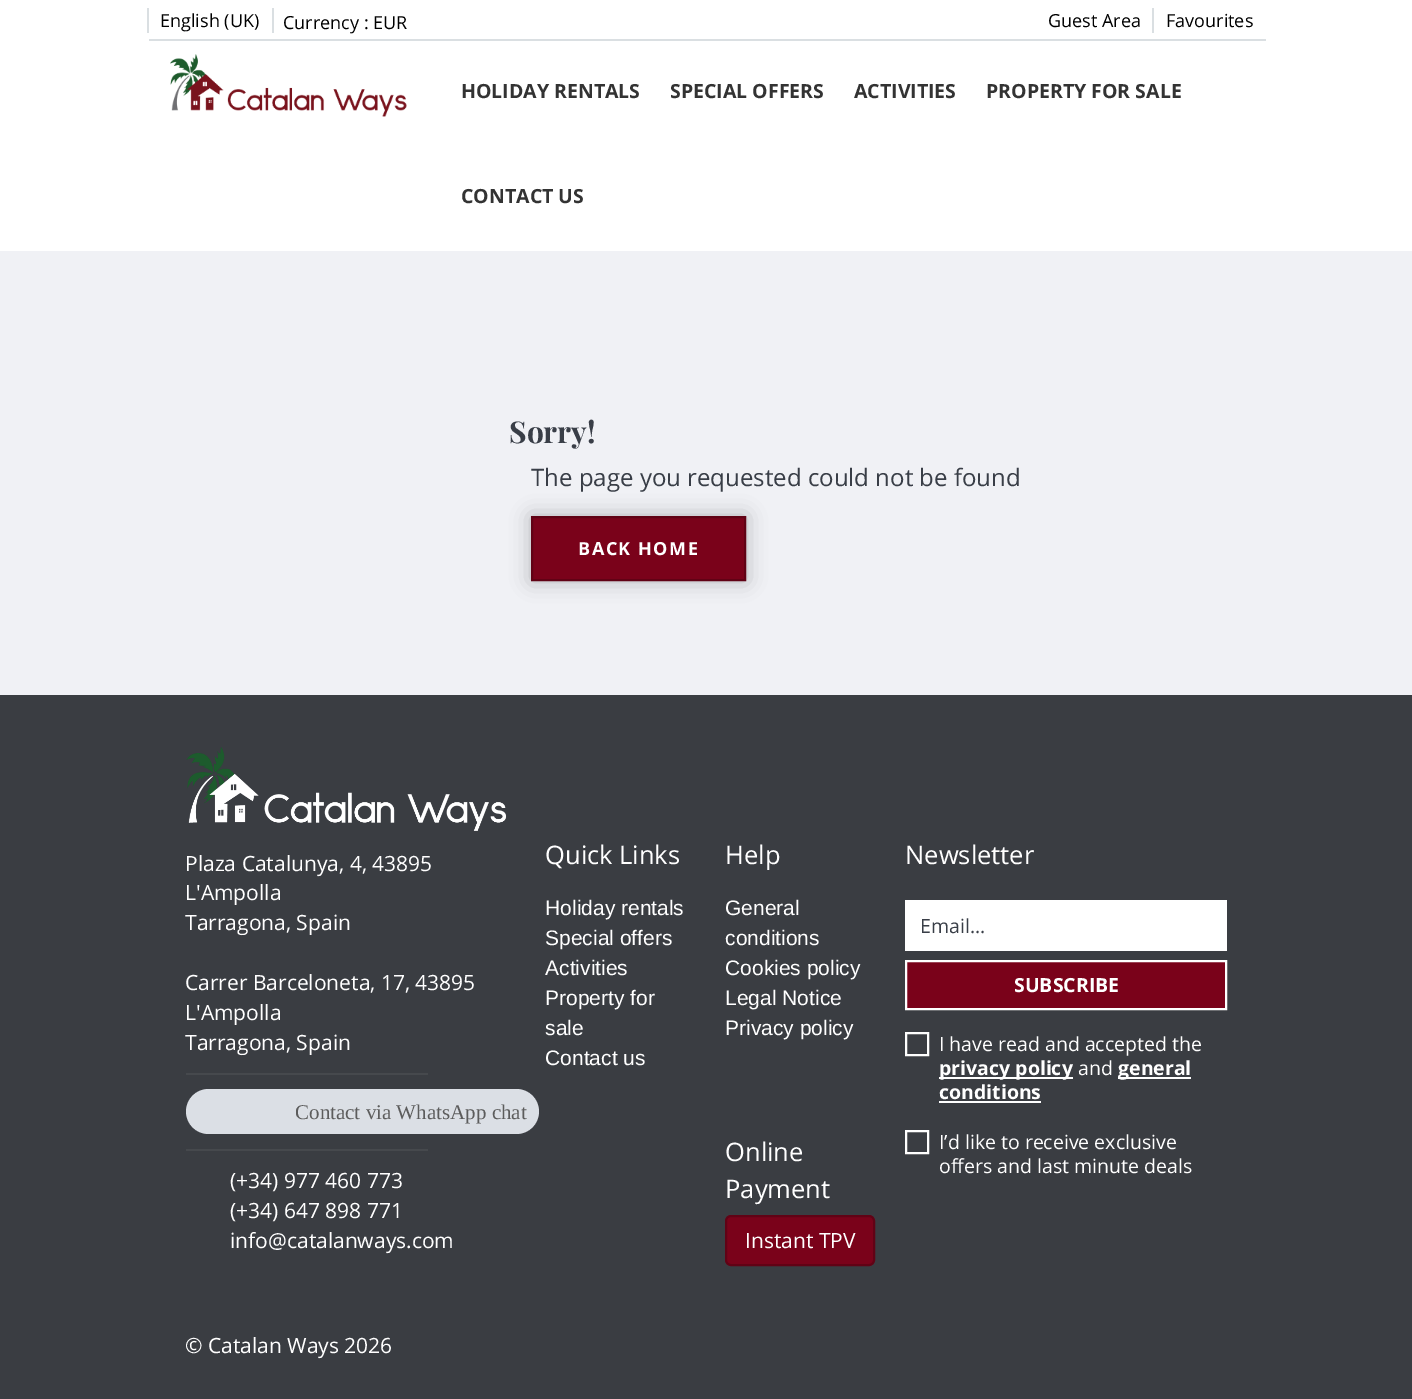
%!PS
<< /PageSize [1412 1399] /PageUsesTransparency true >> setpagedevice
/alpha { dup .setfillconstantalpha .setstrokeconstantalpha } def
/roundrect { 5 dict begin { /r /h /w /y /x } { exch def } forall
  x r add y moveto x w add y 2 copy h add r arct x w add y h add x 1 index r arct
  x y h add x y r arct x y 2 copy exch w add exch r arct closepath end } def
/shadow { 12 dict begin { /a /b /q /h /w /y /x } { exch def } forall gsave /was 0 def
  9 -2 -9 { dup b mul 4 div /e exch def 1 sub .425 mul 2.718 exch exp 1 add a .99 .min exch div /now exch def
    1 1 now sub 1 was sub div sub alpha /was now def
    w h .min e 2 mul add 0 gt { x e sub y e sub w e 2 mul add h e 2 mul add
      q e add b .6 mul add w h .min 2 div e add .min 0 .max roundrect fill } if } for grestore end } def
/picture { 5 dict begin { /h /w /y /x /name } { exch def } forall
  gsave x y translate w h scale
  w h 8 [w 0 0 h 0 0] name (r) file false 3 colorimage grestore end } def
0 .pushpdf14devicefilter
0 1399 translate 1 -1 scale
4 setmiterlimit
1 setgray
0 0 1412 1399 rectfill
0.855 0.875 0.886 setrgbcolor
149 39 1117 2 rectfill
147 8 2 25 rectfill
/OpenSans-Regular [18 0 0 -18 0 0] selectfont
0 setgray
160 27 moveto (English \(UK\)) show
0.855 0.875 0.886 setrgbcolor
272 8 2 25 rectfill
0 setgray
283 29 moveto (Currency : EUR) show
1048 27 moveto (Guest Area) show
0.855 0.875 0.886 setrgbcolor
1152 8 2 25 rectfill
0 setgray
1166 27 moveto (Favourites) show
(img1.rgb) 170 54 237 63 picture
/OpenSans-Bold [19.5 0 0 -19.5 0 0] selectfont
0.2 setgray
461 98 moveto (HOLIDAY RENTALS) show
670 98 moveto (SPECIAL OFFERS) show
854 98 moveto (ACTIVITIES) show
986 98 moveto (PROPERTY FOR SALE) show
461 203 moveto (CONTACT US) show
0.941 0.945 0.961 setrgbcolor
0 251 1412 444 rectfill
/PlayfairDisplay-Bold [30 0 0 -30 0 0] selectfont
0.224 0.243 0.278 setrgbcolor
509 443 moveto (Sorry!) show
/OpenSans-Regular [24 0 0 -24 0 0] selectfont
531 486 moveto (The page you requested could not be found) show
0 setgray
531 516 215 65 0 10 0.25 shadow
0.478 0.008 0.102 setrgbcolor
newpath 532 517 moveto 745 517 lineto 745 580 lineto 532 580 lineto closepath gsave fill grestore
0.38 0.008 0.082 setrgbcolor
2 setlinewidth
stroke
/OpenSans-Bold [18 0 0 -18 0 0] selectfont
1 setgray
578 555 moveto 1.5 0 (BACK HOME) ashow
0.227 0.239 0.259 setrgbcolor
0 695 1412 704 rectfill
(img2.rgb) 186 747 321 84 picture
/OpenSans-Regular [21 0 0 -21 0 0] selectfont
1 setgray
185 871 moveto (Plaza Catalunya, 4, 43895) show
185 900 moveto (L'Ampolla) show
185 930 moveto (Tarragona, Spain) show
185 990 moveto (Carrer Barceloneta, 17, 43895) show
185 1020 moveto (L'Ampolla) show
185 1050 moveto (Tarragona, Spain) show
0.275 0.286 0.302 setrgbcolor
186 1073 242 2 rectfill
0.859 0.875 0.898 setrgbcolor
186 1089 353 45 22.5 roundrect fill
gsave
296 1098 235 27 rectclip
/LiberationSerif-Regular [21 0 0 -21 0 0] selectfont
0.361 setgray
295 1119 moveto (Contact via WhatsApp chat) show
grestore
0.275 0.286 0.302 setrgbcolor
186 1149 242 2 rectfill
1 setgray
230 1188 moveto (\(+34\) 977 460 773) show
230 1218 moveto (\(+34\) 647 898 771) show
230 1248 moveto (info@catalanways.com) show
185 1353 moveto (© Catalan Ways 2026) show
/OpenSans-Regular [25.5 0 0 -25.5 0 0] selectfont
545 864 moveto (Quick Links) show
/LiberationSans-Regular [21 0 0 -21 0 0] selectfont
545 915 moveto (Holiday rentals) show
545 945 moveto (Special offers) show
545 975 moveto (Activities) show
545 1005 moveto (Property for) show
545 1035 moveto (sale) show
545 1065 moveto (Contact us) show
/OpenSans-Regular [25.5 0 0 -25.5 0 0] selectfont
725 864 moveto (Help) show
/LiberationSans-Regular [21 0 0 -21 0 0] selectfont
725 915 moveto (General) show
725 945 moveto (conditions) show
725 975 moveto (Cookies policy) show
725 1005 moveto (Legal Notice) show
725 1035 moveto (Privacy policy) show
/OpenSans-Regular [25.5 0 0 -25.5 0 0] selectfont
725 1161 moveto (Online) show
725 1198 moveto (Payment) show
0.478 0.008 0.102 setrgbcolor
726 1216 148 49 5 roundrect gsave fill grestore
0.38 0.008 0.082 setrgbcolor
stroke
/OpenSans-Regular [21 0 0 -21 0 0] selectfont
1 setgray
745 1248 moveto (Instant TPV) show
/OpenSans-Regular [25.5 0 0 -25.5 0 0] selectfont
905 864 moveto (Newsletter) show
905 900 322 51 rectfill
/OpenSans-Regular [19.5 0 0 -19.5 0 0] selectfont
0.224 0.243 0.278 setrgbcolor
920 933 moveto (Email...) show
0.478 0.008 0.102 setrgbcolor
newpath 906 961 moveto 1226 961 lineto 1226 1009 lineto 906 1009 lineto closepath gsave fill grestore
1 setgray
stroke
/OpenSans-Bold [19.5 0 0 -19.5 0 0] selectfont
1014 992 moveto (SUBSCRIBE) show
906 1033 22 22 rectstroke
/OpenSans-Regular [19.5 0 0 -19.5 0 0] selectfont
939 1051 moveto (I have read and accepted the) show
939 1077 134 2 rectfill
/OpenSans-Bold [19.5 0 0 -19.5 0 0] selectfont
939 1075 moveto (privacy policy) show
/OpenSans-Regular [19.5 0 0 -19.5 0 0] selectfont
1078 1075 moveto (and) show
1118 1077 73 2 rectfill
/OpenSans-Bold [19.5 0 0 -19.5 0 0] selectfont
1118 1075 moveto (general) show
939 1099 moveto (conditions) show
939 1101 102 2 rectfill
906 1131 22 22 rectstroke
/OpenSans-Regular [19.5 0 0 -19.5 0 0] selectfont
939 1149 moveto (I’d like to receive exclusive) show
939 1173 moveto (offers and last minute deals) show
.poppdf14devicefilter showpage
